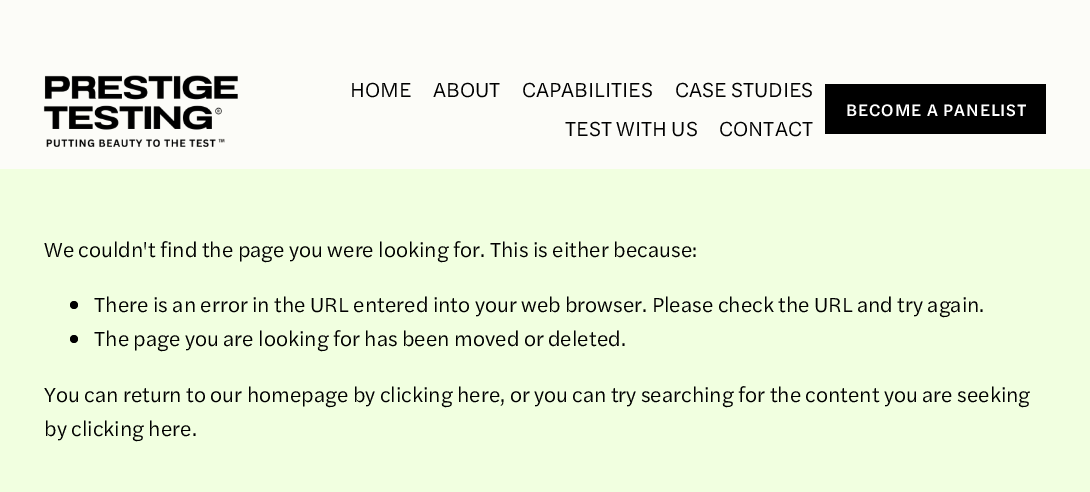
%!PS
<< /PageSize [1090 492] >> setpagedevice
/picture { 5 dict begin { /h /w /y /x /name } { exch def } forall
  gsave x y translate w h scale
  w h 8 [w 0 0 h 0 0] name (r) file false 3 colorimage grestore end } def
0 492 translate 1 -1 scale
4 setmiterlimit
0.945 1 0.878 setrgbcolor
0 0 1090 492 rectfill
0.988 0.988 0.973 setrgbcolor
0 0 1090 169 rectfill
(img1.rgb) 43 75 195 72 picture
/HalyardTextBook-Regular [21.3 0 0 -21.3 0 0] selectfont
0 setgray
350 97 moveto (HOME) show
433 97 moveto (ABOUT) show
522 97 moveto (CAPABILITIES) show
675 97 moveto (CASE STUDIES) show
565 136 moveto (TEST WITH US) show
719 136 moveto (CONTACT) show
825 84 221 50 rectfill
/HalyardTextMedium-Medium [17.4 0 0 -17.4 0 0] selectfont
1 setgray
846 116 moveto 0.9 0 (BECOME A PANELIST) ashow
/HalyardTextBook-Regular [21.3 0 0 -21.3 0 0] selectfont
0 setgray
44 257 moveto (We couldn't find the page you were looking for. This is either because:) show
newpath 74 305 4 0 360 arc closepath fill
94 312 moveto (There is an error in the URL entered into your web browser. Please check the URL and try again.) show
newpath 74 339 4 0 360 arc closepath fill
94 346 moveto (The page you are looking for has been moved or deleted.) show
44 402 moveto (You can return to our homepage by clicking here, or you can try searching for the) show
805 402 moveto (content you are seeking) show
44 436 moveto (by clicking here.) show
showpage
